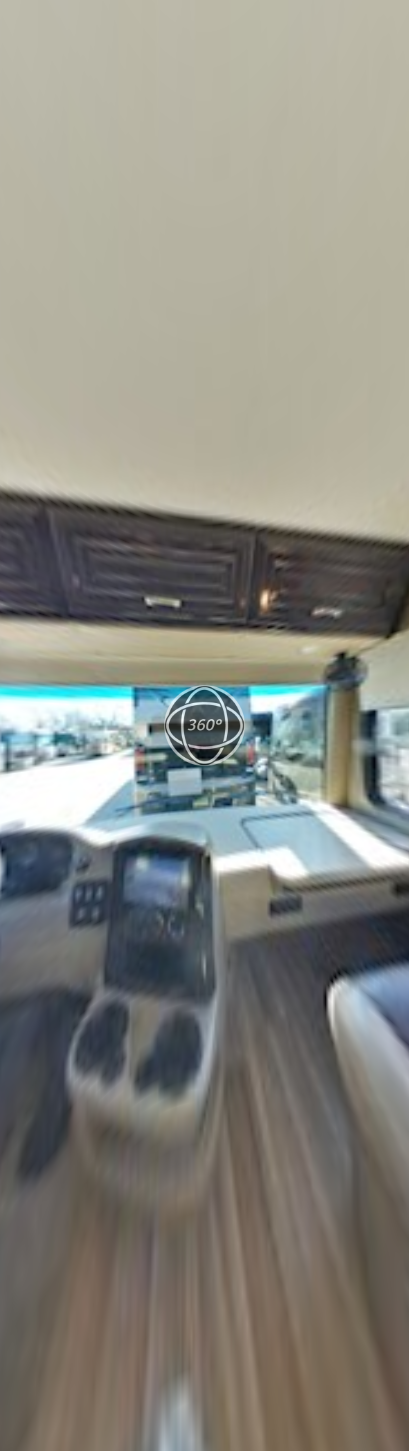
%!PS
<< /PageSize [409 1451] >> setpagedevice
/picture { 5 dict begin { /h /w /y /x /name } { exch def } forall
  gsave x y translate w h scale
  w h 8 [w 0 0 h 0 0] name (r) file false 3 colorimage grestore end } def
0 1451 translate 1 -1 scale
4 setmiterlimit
1 setgray
0 0 409 1451 rectfill
(img1.rgb) 0 0 409 1451 picture
(img2.rgb) 164 685 81 82 picture
showpage
